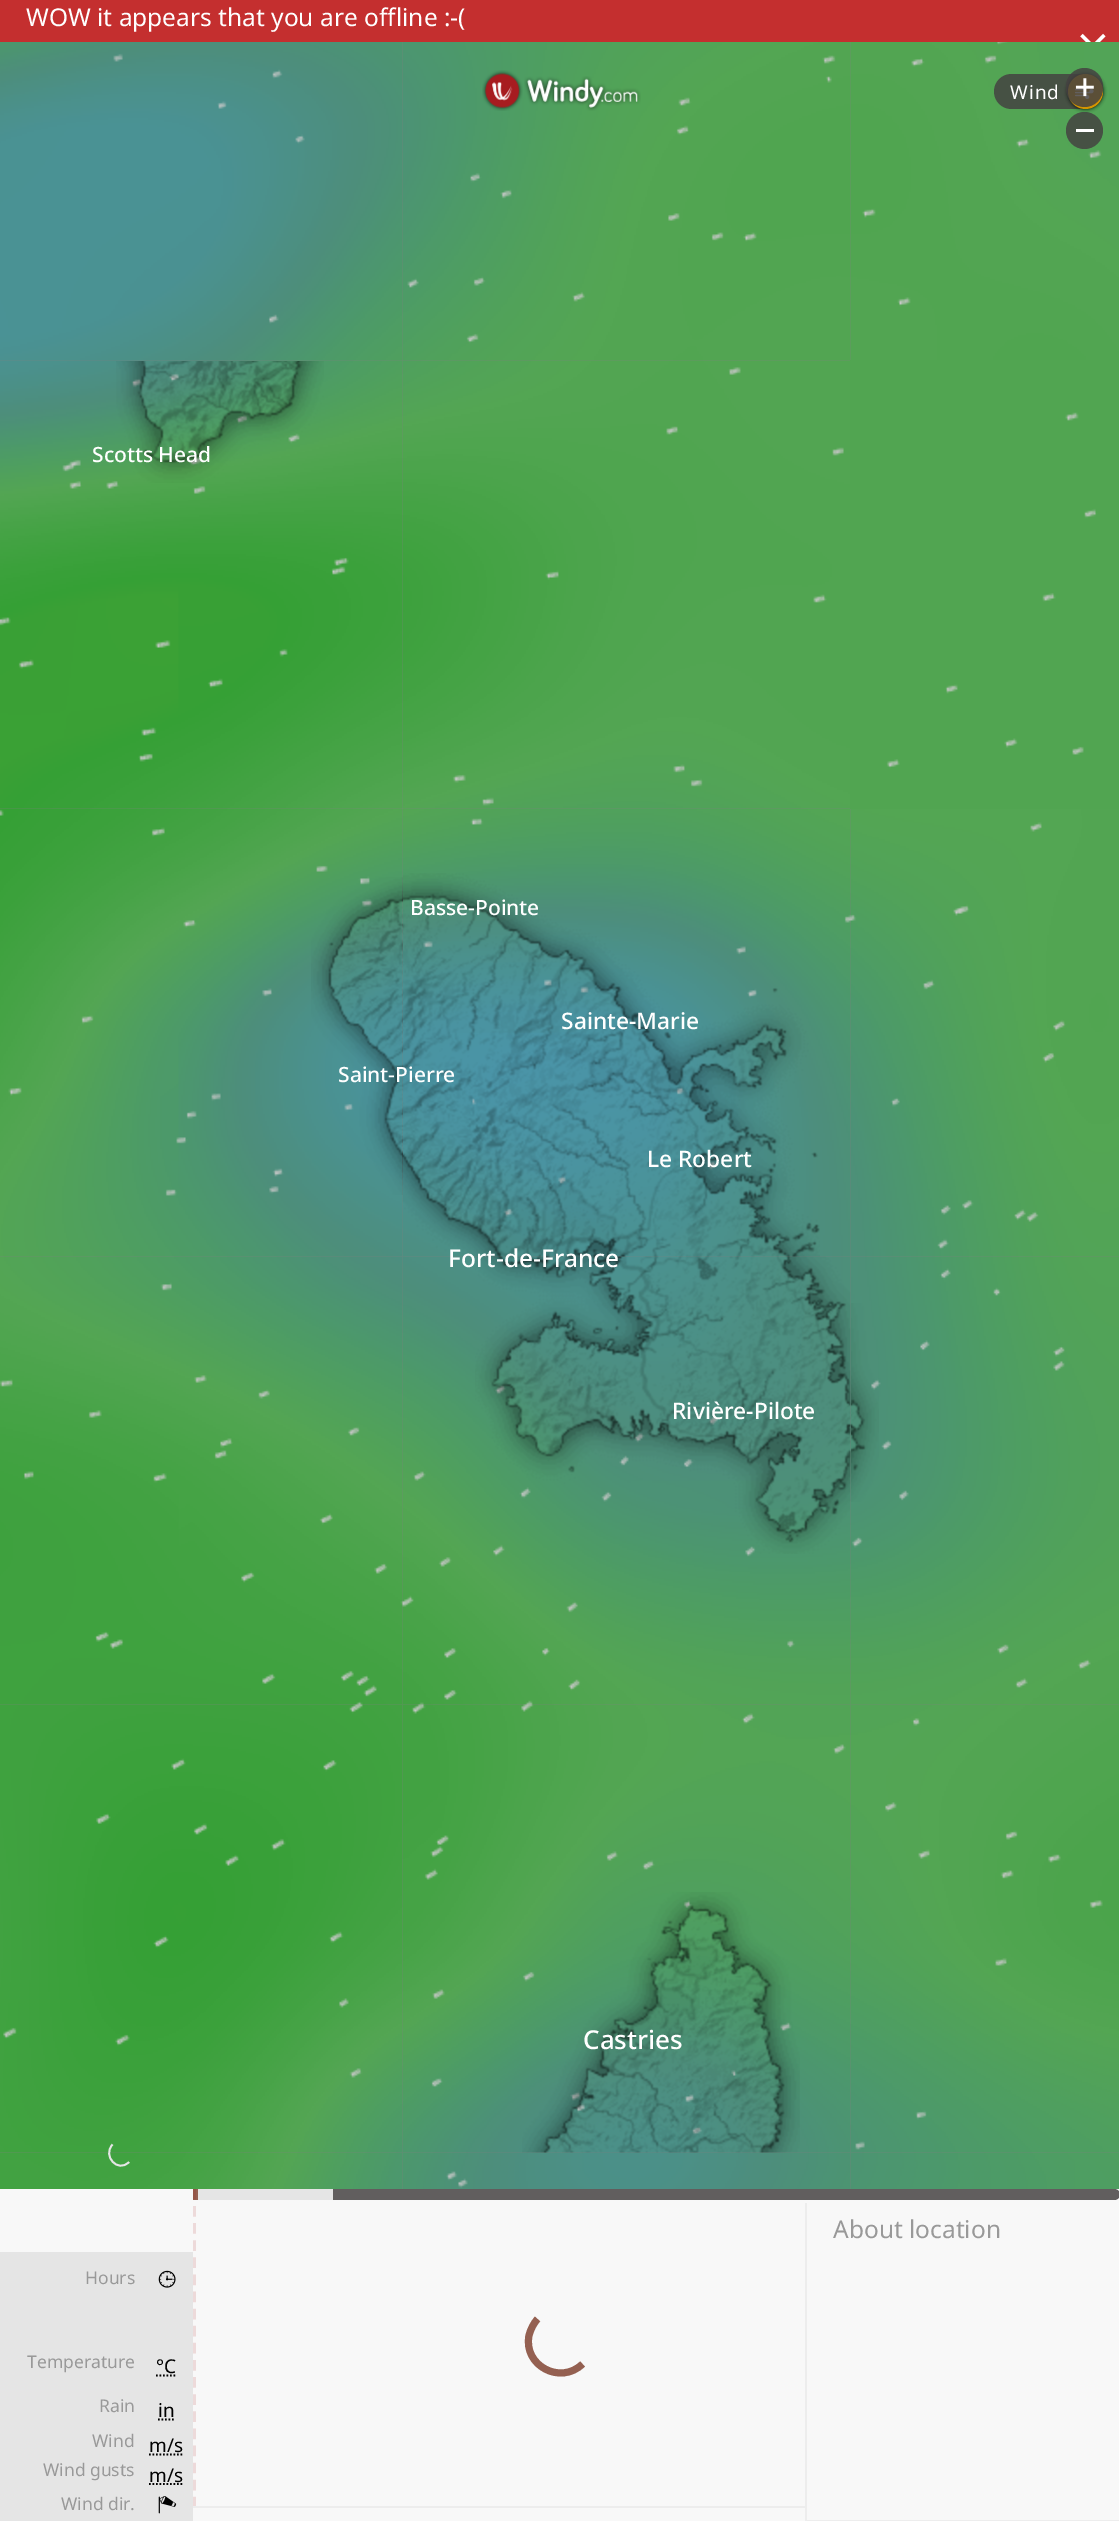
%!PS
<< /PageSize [1119 2521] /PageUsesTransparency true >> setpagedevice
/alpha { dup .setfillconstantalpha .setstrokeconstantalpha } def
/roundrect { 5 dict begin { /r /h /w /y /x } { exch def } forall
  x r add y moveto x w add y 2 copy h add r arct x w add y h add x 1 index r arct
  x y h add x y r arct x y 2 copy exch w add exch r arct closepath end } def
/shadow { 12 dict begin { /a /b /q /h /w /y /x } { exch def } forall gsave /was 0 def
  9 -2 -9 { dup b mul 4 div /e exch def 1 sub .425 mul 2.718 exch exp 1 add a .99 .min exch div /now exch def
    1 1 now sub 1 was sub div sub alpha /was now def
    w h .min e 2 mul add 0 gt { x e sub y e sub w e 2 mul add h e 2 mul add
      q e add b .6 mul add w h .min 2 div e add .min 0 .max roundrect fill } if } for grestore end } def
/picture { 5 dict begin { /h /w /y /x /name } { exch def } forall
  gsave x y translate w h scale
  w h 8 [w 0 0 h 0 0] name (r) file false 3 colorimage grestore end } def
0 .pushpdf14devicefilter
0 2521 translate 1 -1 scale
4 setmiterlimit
0.502 setgray
0 0 1119 2521 rectfill
0.769 0.184 0.184 setrgbcolor
0 0 1119 42 rectfill
/NotoSans-Regular [24.5 0 0 -24.5 0 0] selectfont
1 setgray
26 26 moveto (WOW it appears that you are offline :-\() show
(img1.rgb) 1080 33 26 9 picture
(img12.rgb) 402 808 449 449 picture
(img15.rgb) 402 1256 449 449 picture
(img11.rgb) 0 808 403 449 picture
(img10.rgb) 402 360 448 449 picture
(img9.rgb) 0 360 403 449 picture
0.318 0.647 0.318 setrgbcolor
850 360 269 449 rectfill
(img7.rgb) 402 42 449 319 picture
(img6.rgb) 0 42 403 319 picture
(img8.rgb) 850 42 269 318 picture
(img13.rgb) 850 809 269 448 picture
(img14.rgb) 0 1256 403 449 picture
(img16.rgb) 850 1256 269 449 picture
(img18.rgb) 402 1704 449 449 picture
(img17.rgb) 0 1704 403 449 picture
(img19.rgb) 850 1704 269 449 picture
(img21.rgb) 402 2152 449 37 picture
(img20.rgb) 0 2152 403 37 picture
(img22.rgb) 850 2152 269 37 picture
(img23.rgb) 0 42 1103 2146 picture
(img2.rgb) 482 70 41 41 picture
(img3.rgb) 524 76 117 35 picture
0.84 alpha
0.267 0.255 0.255 setrgbcolor
994 74 109 35 17.5 roundrect fill
/NotoSans-Regular [19 0 0 -19 0 0] selectfont
1 alpha
1 setgray
1010 99 moveto 1 0 (Wind) ashow
gsave
newpath 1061 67 moveto 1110 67 lineto 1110 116 lineto 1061 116 lineto closepath 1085.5 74 moveto 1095 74 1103 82 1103 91.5 curveto 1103 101 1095 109 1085.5 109 curveto 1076 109 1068 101 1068 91.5 curveto 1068 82 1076 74 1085.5 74 curveto closepath eoclip newpath
0 setgray
1068 74 35 35 17.5 2 1 shadow
grestore
0.831 0.584 0 setrgbcolor
newpath 1085.5 91.5 17.5 0 360 arc closepath fill
(img4.rgb) 1074 88 20 12 picture
0.84 alpha
0.267 0.255 0.255 setrgbcolor
1066 68 37 39 18.5 roundrect fill
1 alpha
(img5.rgb) 1075 78 19 19 picture
0.84 alpha
newpath 1084.5 130.5 18.5 0 360 arc closepath fill
1 alpha
1 setgray
1076 129 18 3 rectfill
(img24.rgb) 116 361 208 122 picture
(img26.rgb) 402 873 418 384 picture
(img25.rgb) 311 877 92 318 picture
(img27.rgb) 475 1256 376 298 picture
(img28.rgb) 851 1303 28 199 picture
(img29.rgb) 522 1892 278 261 picture
/NotoSans-Medium [21 0 0 -21 0 0] selectfont
92 462 moveto (Scotts Head) show
338 1082 moveto (Saint-Pierre) show
410 915 moveto (Basse-Pointe) show
/NotoSans-Medium [22.75 0 0 -22.75 0 0] selectfont
561 1029 moveto (Sainte-Marie) show
647 1167 moveto (Le Robert) show
/NotoSans-Medium [24.5 0 0 -24.5 0 0] selectfont
448 1267 moveto (Fort-de-France) show
/NotoSans-Medium [22.75 0 0 -22.75 0 0] selectfont
672 1419 moveto (Rivière-Pilote) show
/NotoSans-Medium [26 0 0 -26 0 0] selectfont
583 2049 moveto (Castries) show
0.898 setgray
1.8 setlinewidth
newpath 129 2162 moveto 118 2173.5 102 2156 112.5 2144.5 curveto stroke
0.973 setgray
0 2189 1119 332 rectfill
0.38 0.369 0.369 setrgbcolor
193 2189 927 11 5.5 roundrect fill
0.58 0.376 0.318 setrgbcolor
193 2189 5 11 rectfill
0.898 setgray
198 2189 135 11 rectfill
gsave
193 2189 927 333 rectclip
0.12 alpha
0.616 0.012 0 setrgbcolor
3.5 setlinewidth
[10.5 6.61] 0 setdash
newpath 194 2189 moveto 194 2508 lineto stroke
grestore
0.929 setgray
805 2520 314 1 rectfill
805 2203 2 318 rectfill
193 2506 614 2 rectfill
/NotoSans-Regular [24.5 0 0 -24.5 0 0] selectfont
0.6 setgray
833 2238 moveto (About location) show
0.898 setgray
0 2252 193 269 rectfill
/NotoSans-Regular [17.5 0 0 -17.5 0 0] selectfont
0.6 setgray
85 2284 moveto (Hours) show
(img30.rgb) 158 2270 18 18 picture
27 2368 moveto (Temperature) show
/NotoSans-Regular [19 0 0 -19 0 0] selectfont
0 setgray
156 2373 moveto (°C) show
[1.75 1.75] 0 setdash
newpath 156 2375.5 moveto 176.5 2375.5 lineto stroke
/NotoSans-Regular [17.5 0 0 -17.5 0 0] selectfont
0.6 setgray
99 2412 moveto (Rain) show
/NotoSans-Regular [19 0 0 -19 0 0] selectfont
0 setgray
158 2417 moveto (in) show
newpath 158 2419.5 moveto 174.5 2419.5 lineto stroke
/NotoSans-Regular [17.5 0 0 -17.5 0 0] selectfont
0.6 setgray
92 2447 moveto (Wind) show
/NotoSans-Regular [19 0 0 -19 0 0] selectfont
0 setgray
149 2452 moveto (m/s) show
newpath 149 2454.5 moveto 183.5 2454.5 lineto stroke
/NotoSans-Regular [17.5 0 0 -17.5 0 0] selectfont
0.6 setgray
43 2476 moveto (Wind gusts) show
/NotoSans-Regular [19 0 0 -19 0 0] selectfont
0 setgray
149 2482 moveto (m/s) show
newpath 149 2484 moveto 183.5 2484 lineto stroke
/NotoSans-Regular [17.5 0 0 -17.5 0 0] selectfont
0.6 setgray
61 2510 moveto (Wind dir.) show
(img31.rgb) 158 2496 19 18 picture
0.58 0.376 0.318 setrgbcolor
7 setlinewidth
[] 0 setdash
newpath 582.5 2364 moveto 560.5 2385.5 523 2365.5 529 2335.5 curveto 530.5 2329.5 533.5 2323.5 537.5 2319 curveto stroke
.poppdf14devicefilter showpage
